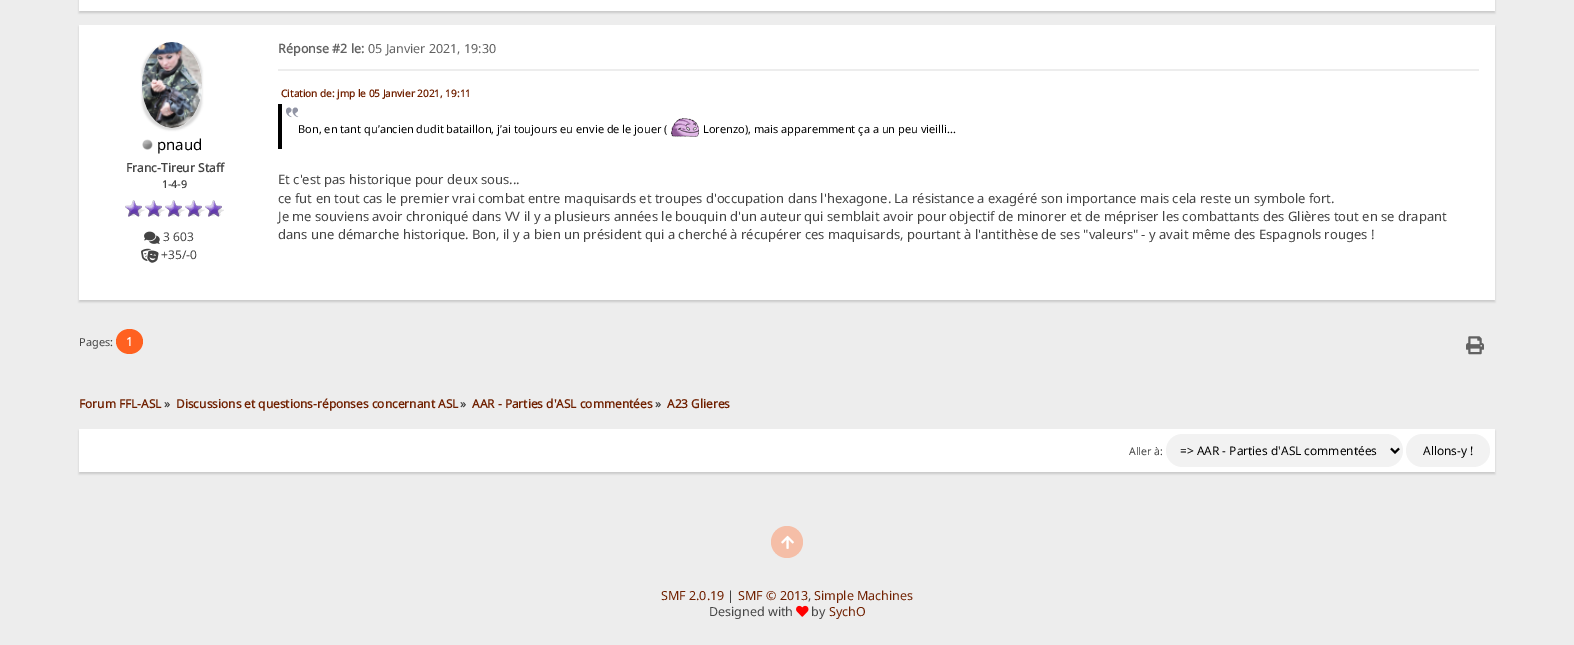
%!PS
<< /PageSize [1574 645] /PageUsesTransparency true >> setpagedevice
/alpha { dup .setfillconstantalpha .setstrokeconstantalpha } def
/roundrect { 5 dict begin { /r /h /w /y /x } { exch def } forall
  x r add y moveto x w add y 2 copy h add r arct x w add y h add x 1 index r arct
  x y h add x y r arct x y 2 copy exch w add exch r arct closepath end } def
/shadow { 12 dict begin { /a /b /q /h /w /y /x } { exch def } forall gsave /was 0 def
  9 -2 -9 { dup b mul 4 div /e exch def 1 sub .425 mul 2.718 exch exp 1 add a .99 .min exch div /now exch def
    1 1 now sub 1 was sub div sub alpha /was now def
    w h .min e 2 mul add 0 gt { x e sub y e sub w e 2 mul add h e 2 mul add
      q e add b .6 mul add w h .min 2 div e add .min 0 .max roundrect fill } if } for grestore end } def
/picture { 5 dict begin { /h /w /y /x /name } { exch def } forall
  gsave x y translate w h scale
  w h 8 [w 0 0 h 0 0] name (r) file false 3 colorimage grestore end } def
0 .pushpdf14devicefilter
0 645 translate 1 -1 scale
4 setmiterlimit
0.929 setgray
0 0 1574 645 rectfill
0 setgray
79 -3 1416 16 0 1 0.15 shadow
1 setgray
79 0 1416 11 rectfill
0 setgray
79 27 1416 275 0 1 0.15 shadow
1 setgray
79 25 1416 275 rectfill
0 setgray
142 44 60 86 30 1 0.15 shadow
1 setgray
newpath 172 42 moveto 188.5 42 202 61.5 202 85 curveto 202 108.5 188.5 128 172 128 curveto 155.5 128 142 108.5 142 85 curveto 142 61.5 155.5 42 172 42 curveto closepath fill
(img1.rgb) 142 42 60 86 picture
(img2.rgb) 142 139 11 11 picture
/NotoSans-Regular [15 0 0 -15 0 0] selectfont
0 setgray
157 150 moveto (pnaud) show
/NotoSans-Bold [12 0 0 -12 0 0] selectfont
0.267 setgray
126 172 moveto (Franc-Tireur Staff) show
/NotoSans-Bold [10.5 0 0 -10.5 0 0] selectfont
162 188 moveto (1-4-9) show
(img3.rgb) 125 200 99 17 picture
(img4.rgb) 144 231 16 13 picture
/NotoSans-Regular [12 0 0 -12 0 0] selectfont
163 241 moveto (3 603) show
(img5.rgb) 141 248 18 15 picture
161 259 moveto (+35/-0) show
/NotoSans-Bold [12.5 0 0 -12.5 0 0] selectfont
0.38 setgray
278 53 moveto (Réponse #2 le:) show
/NotoSans-Regular [12.5 0 0 -12.5 0 0] selectfont
368 53 moveto (05 Janvier 2021, 19:30) show
0.929 setgray
278 69 1201 2 rectfill
/NotoSans-Bold [10 0 0 -10 0 0] selectfont
0.439 0.125 0 setrgbcolor
281 97 moveto (Citation de: jmp le 05 Janvier 2021, 19:11) show
(img6.rgb) 286 107 13 11 picture
0 setgray
278 104 4 45 rectfill
/NotoSans-Regular [11 0 0 -11 0 0] selectfont
298 133 moveto (Bon, en tant qu’ancien dudit bataillon, j’ai toujours eu envie de le jouer \() show
(img7.rgb) 671 118 28 19 picture
703 133 moveto (Lorenzo\), mais apparemment ça a un peu vieilli...) show
/NotoSans-Regular [13 0 0 -13 0 0] selectfont
0.267 setgray
278 184 moveto (Et c'est pas historique pour deux sous...) show
278 203 moveto (ce fut en tout cas le premier vrai combat entre maquisards et troupes d'occupation dans l'hexagone. La résistance a exagéré son importance mais cela reste un symbole fort.) show
278 221 moveto (Je me souviens avoir chroniqué dans VV il y a plusieurs années le bouquin d'un auteur qui semblait avoir pour objectif de minorer et de mépriser les combattants des Glières tout en se drapant) show
278 239 moveto (dans une démarche historique. Bon, il y a bien un président qui a cherché à récupérer ces maquisards, pourtant à l'antithèse de ses "valeurs" - y avait même des Espagnols rouges !) show
/NotoSans-Regular [11 0 0 -11 0 0] selectfont
79 346 moveto (Pages:) show
1 0.38 0.125 setrgbcolor
newpath 129.5 329 moveto 137 329 143 334.5 143 341.5 curveto 143 348.5 137 354 129.5 354 curveto 122 354 116 348.5 116 341.5 curveto 116 334.5 122 329 129.5 329 curveto closepath fill
/NotoSans-Bold [12 0 0 -12 0 0] selectfont
1 setgray
126 346 moveto (1) show
(img8.rgb) 1466 336 18 19 picture
/NotoSans-Bold [11.9 0 0 -11.9 0 0] selectfont
0.439 0.125 0 setrgbcolor
79 408 moveto (Forum FFL-ASL) show
0.267 setgray
164 408 moveto (») show
0.439 0.125 0 setrgbcolor
176 408 moveto (Discussions et questions-réponses concernant ASL) show
0.267 setgray
460 408 moveto (») show
0.439 0.125 0 setrgbcolor
472 408 moveto (AAR - Parties d'ASL commentées) show
0.267 setgray
655 408 moveto (») show
0.439 0.125 0 setrgbcolor
667 408 moveto (A23 Glieres) show
0 setgray
79 431 1416 43 0 1 0.15 shadow
1 setgray
79 429 1416 43 rectfill
/NotoSans-Regular [10.5 0 0 -10.5 0 0] selectfont
0.267 setgray
1129 455 moveto (Aller à:) show
0.949 setgray
1166 434 237 33 16.5 roundrect fill
0 setgray
2 setlinewidth
newpath 1391 448.5 moveto 1395 452.5 lineto 1399 448.5 lineto stroke
/NotoSans-Regular [11.9 0 0 -11.9 0 0] selectfont
1180 455 moveto (=> AAR - Parties d'ASL commentées) show
0.949 setgray
1406 434 84 33 16.5 roundrect fill
0 setgray
1423 455 moveto (Allons-y !) show
0.961 0.745 0.655 setrgbcolor
newpath 787 542 16 0 360 arc closepath fill
(img9.rgb) 781 535 13 14 picture
/NotoSans-Regular [12.5 0 0 -12.5 0 0] selectfont
0.439 0.125 0 setrgbcolor
661 600 moveto (SMF 2.0.19) show
0.267 setgray
727 600 moveto (|) show
0.439 0.125 0 setrgbcolor
738 600 moveto (SMF © 2013) show
0.267 setgray
808 600 moveto (,) show
0.439 0.125 0 setrgbcolor
814 600 moveto (Simple Machines) show
0.267 setgray
709 616 moveto (Designed with) show
(img10.rgb) 796 605 13 12 picture
811 616 moveto (by) show
0.439 0.125 0 setrgbcolor
829 616 moveto (SychO) show
.poppdf14devicefilter showpage
